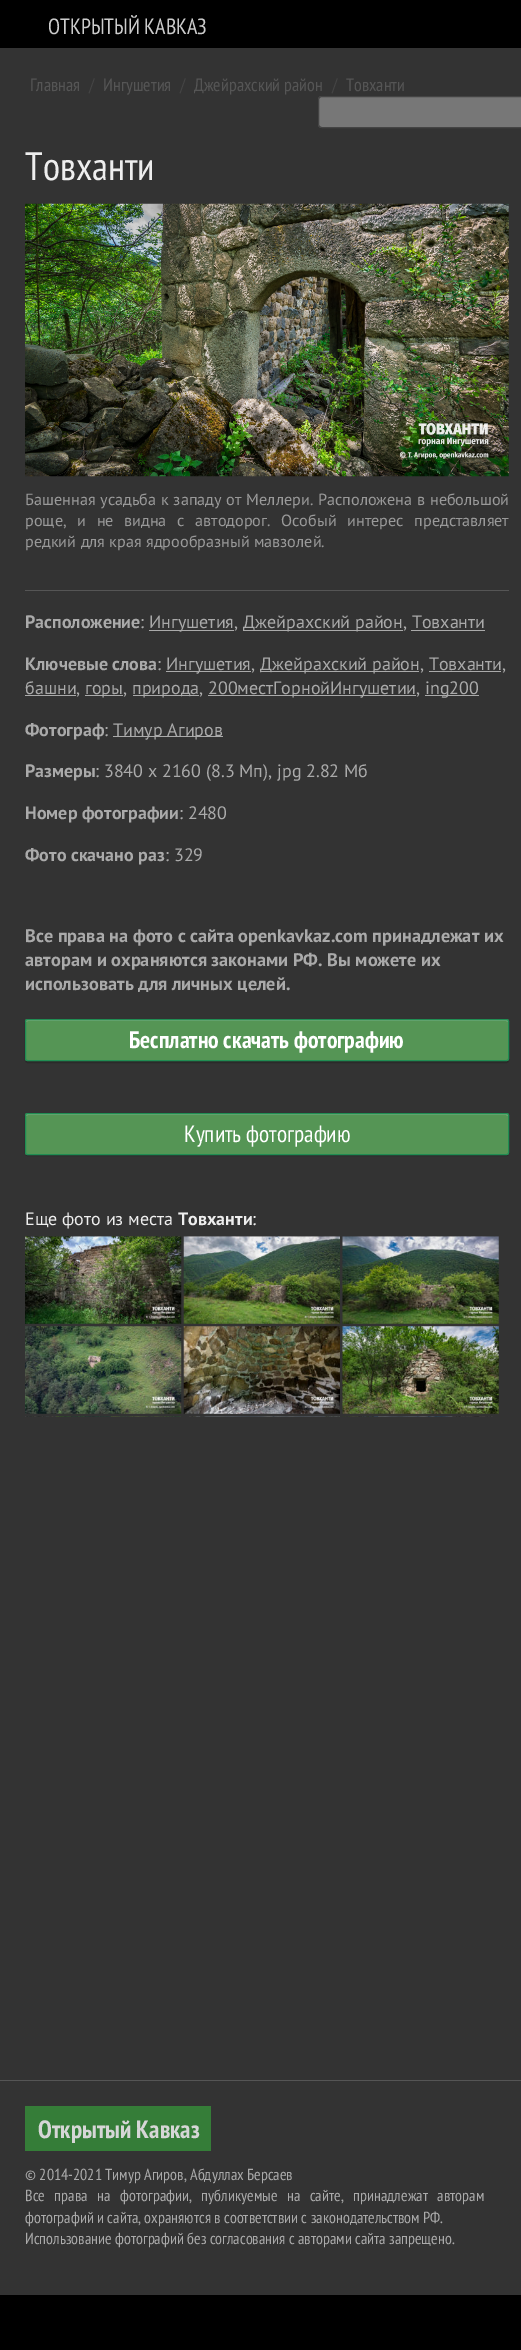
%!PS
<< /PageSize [521 2350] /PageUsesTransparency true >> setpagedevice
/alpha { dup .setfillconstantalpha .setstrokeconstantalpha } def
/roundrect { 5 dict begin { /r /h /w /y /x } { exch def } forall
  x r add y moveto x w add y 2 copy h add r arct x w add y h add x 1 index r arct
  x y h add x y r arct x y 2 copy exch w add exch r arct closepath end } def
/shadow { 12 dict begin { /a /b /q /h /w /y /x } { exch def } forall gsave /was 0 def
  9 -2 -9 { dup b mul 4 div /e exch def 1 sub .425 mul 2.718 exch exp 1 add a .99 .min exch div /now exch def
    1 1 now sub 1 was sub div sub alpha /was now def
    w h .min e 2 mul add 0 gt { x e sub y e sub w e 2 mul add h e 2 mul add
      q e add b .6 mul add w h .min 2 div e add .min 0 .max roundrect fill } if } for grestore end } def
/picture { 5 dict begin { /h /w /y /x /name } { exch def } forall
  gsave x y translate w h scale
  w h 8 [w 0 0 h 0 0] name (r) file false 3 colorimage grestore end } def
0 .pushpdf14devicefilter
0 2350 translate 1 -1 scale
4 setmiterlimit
0 setgray
0 0 521 2350 rectfill
/PTSansNarrow-Regular [22 0 0 -22 0 0] selectfont
0.8 setgray
48 34 moveto (ОТКРЫТЫЙ КАВКАЗ) show
0.2 setgray
0 48 521 2247 rectfill
/PTSansNarrow-Regular [18 0 0 -18 0 0] selectfont
0.333 setgray
30 91 moveto (Главная) show
0.267 setgray
89 91 moveto (/) show
0.333 setgray
103 91 moveto (Ингушетия) show
0.267 setgray
180 91 moveto (/) show
0.333 setgray
194 91 moveto (Джейрахский район) show
0.267 setgray
332 91 moveto (/) show
0.333 setgray
346 91 moveto (Товханти) show
0.467 setgray
newpath 322 96 moveto 521 96 lineto 521 128 lineto 322 128 lineto 320 128 318 126 318 124 curveto 318 100 lineto 318 98 320 96 322 96 curveto closepath fill
0.267 setgray
318.5 96.5 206 31 3.5 roundrect stroke
/PTSansNarrow-Regular [39.5 0 0 -39.5 0 0] selectfont
0.933 setgray
25 180 moveto (Товханти) show
(img1.rgb) 25 203 484 274 picture
/PTSans-Regular [16.2 0 0 -16.2 0 0] selectfont
0.6 setgray
25 505 moveto 0.5 0 32 (Башенная усадьба к западу от Меллери. Расположена в небольшой) widthshow
25 526 moveto 6.25 0 32 (роще, и не видна с автодорог. Особый интерес представляет) widthshow
25 547 moveto (редкий для края ядрообразный мавзолей.) show
0.333 setgray
25 590 484 1 rectfill
/PTSans-Bold [18 0 0 -18 0 0] selectfont
0.667 setgray
25 628 moveto (Расположение) show
/PTSans-Regular [18 0 0 -18 0 0] selectfont
140 628 moveto (:) show
149 630 85 1 rectfill
149 628 moveto (Ингушетия,) show
243 630 160 1 rectfill
243 628 moveto (Джейрахский район, Товханти) show
411 630 74 1 rectfill
/PTSans-Bold [18 0 0 -18 0 0] selectfont
25 670 moveto (Ключевые слова) show
/PTSans-Regular [18 0 0 -18 0 0] selectfont
157 670 moveto (:) show
166 671 85 1 rectfill
166 670 moveto (Ингушетия,) show
260 671 159 1 rectfill
260 670 moveto (Джейрахский район, Товханти,) show
429 671 72 1 rectfill
25 695 51 1 rectfill
25 694 moveto (башни,) show
85 695 38 1 rectfill
85 694 moveto (горы,) show
133 695 66 1 rectfill
132 694 moveto (природа,) show
208 695 208 1 rectfill
208 694 moveto (200местГорнойИнгушетии,) show
425 695 54 1 rectfill
425 694 moveto (ing200) show
/PTSans-Bold [18 0 0 -18 0 0] selectfont
25 736 moveto (Фотограф) show
/PTSans-Regular [18 0 0 -18 0 0] selectfont
104 736 moveto (:) show
113 736 110 1 rectfill
113 736 moveto (Тимур Агиров) show
/PTSans-Bold [18 0 0 -18 0 0] selectfont
25 777 moveto (Размеры) show
/PTSans-Regular [18 0 0 -18 0 0] selectfont
95 777 moveto (: 3840 x 2160 \(8.3 Мп\), jpg 2.82 Мб) show
/PTSans-Bold [18 0 0 -18 0 0] selectfont
25 819 moveto (Номер фотографии) show
/PTSans-Regular [18 0 0 -18 0 0] selectfont
179 819 moveto (: 2480) show
/PTSans-Bold [18 0 0 -18 0 0] selectfont
25 861 moveto (Фото скачано раз) show
/PTSans-Regular [18 0 0 -18 0 0] selectfont
165 861 moveto (: 329) show
/PTSans-Bold [18.3 0 0 -18.3 0 0] selectfont
25 942 moveto (Все права на фото с сайта openkavkaz.com принадлежат их) show
25 966 moveto (авторам и охраняются законами РФ. Вы можете их) show
25 990 moveto (использовать для личных целей.) show
0 setgray
25 1020 484 43 2.5 0.5 0.2 shadow
0.333 0.584 0.333 setrgbcolor
25 1019 484 42 2.5 roundrect fill
0.467 0.667 0.467 setrgbcolor
newpath 28 1021 moveto 506 1021 lineto 508 1022 lineto 508 1021 508 1020 507 1020 curveto 27 1020 lineto 26 1021 lineto 26 1022 lineto closepath fill
0.125 0.553 0.325 setrgbcolor
25.5 1019.5 483 41 2 roundrect stroke
/PTSansNarrow-Bold [23.75 0 0 -23.75 0 0] selectfont
1 setgray
129 1048 moveto (Бесплатно скачать фотографию) show
0 setgray
25 1114 484 42 2.5 0.5 0.2 shadow
0.333 0.584 0.333 setrgbcolor
25 1113 484 42 2.5 roundrect fill
0.467 0.667 0.467 setrgbcolor
newpath 28 1115 moveto 506 1115 lineto 508 1116 lineto 508 1115 508 1114 507 1114 curveto 27 1114 lineto 26 1115 lineto 26 1116 lineto closepath fill
0.125 0.553 0.325 setrgbcolor
25.5 1113.5 483 41 2 roundrect stroke
/PTSansNarrow-Regular [23.5 0 0 -23.5 0 0] selectfont
1 setgray
184 1142 moveto (Купить фотографию) show
/PTSans-Regular [18 0 0 -18 0 0] selectfont
0.933 setgray
25 1225 moveto (Еще фото из места) show
/PTSans-Bold [18 0 0 -18 0 0] selectfont
178 1225 moveto (Товханти) show
/PTSans-Regular [18 0 0 -18 0 0] selectfont
252 1225 moveto (:) show
(img2.rgb) 25 1236 157 88 picture
(img3.rgb) 183 1236 157 88 picture
(img4.rgb) 342 1236 157 88 picture
(img5.rgb) 25 1326 157 88 picture
(img6.rgb) 183 1326 157 88 picture
(img7.rgb) 342 1326 157 88 picture
(img8.rgb) 25 1416 156 1 picture
(img9.rgb) 189 1416 151 1 picture
(img10.rgb) 343 1416 150 1 picture
0.333 setgray
0 2080 521 1 rectfill
0.208 0.49 0.22 setrgbcolor
25 2106 186 45 rectfill
/PTSansNarrow-Bold [25 0 0 -25 0 0] selectfont
0.839 setgray
38 2138 moveto (Открытый Кавказ) show
/PTSansNarrow-Regular [16 0 0 -16 0 0] selectfont
0.667 setgray
25 2180 moveto (© 2014-2021 Тимур Агиров, Абдуллах Берсаев) show
25 2201 moveto 6.25 0 32 (Все права на фотографии, публикуемые на сайте, принадлежат авторам) widthshow
25 2223 moveto (фотографий и сайта, охраняются в соответствии с законодательством РФ.) show
25 2244 moveto (Использование фотографий без согласования с авторами сайта запрещено.) show
.poppdf14devicefilter showpage
